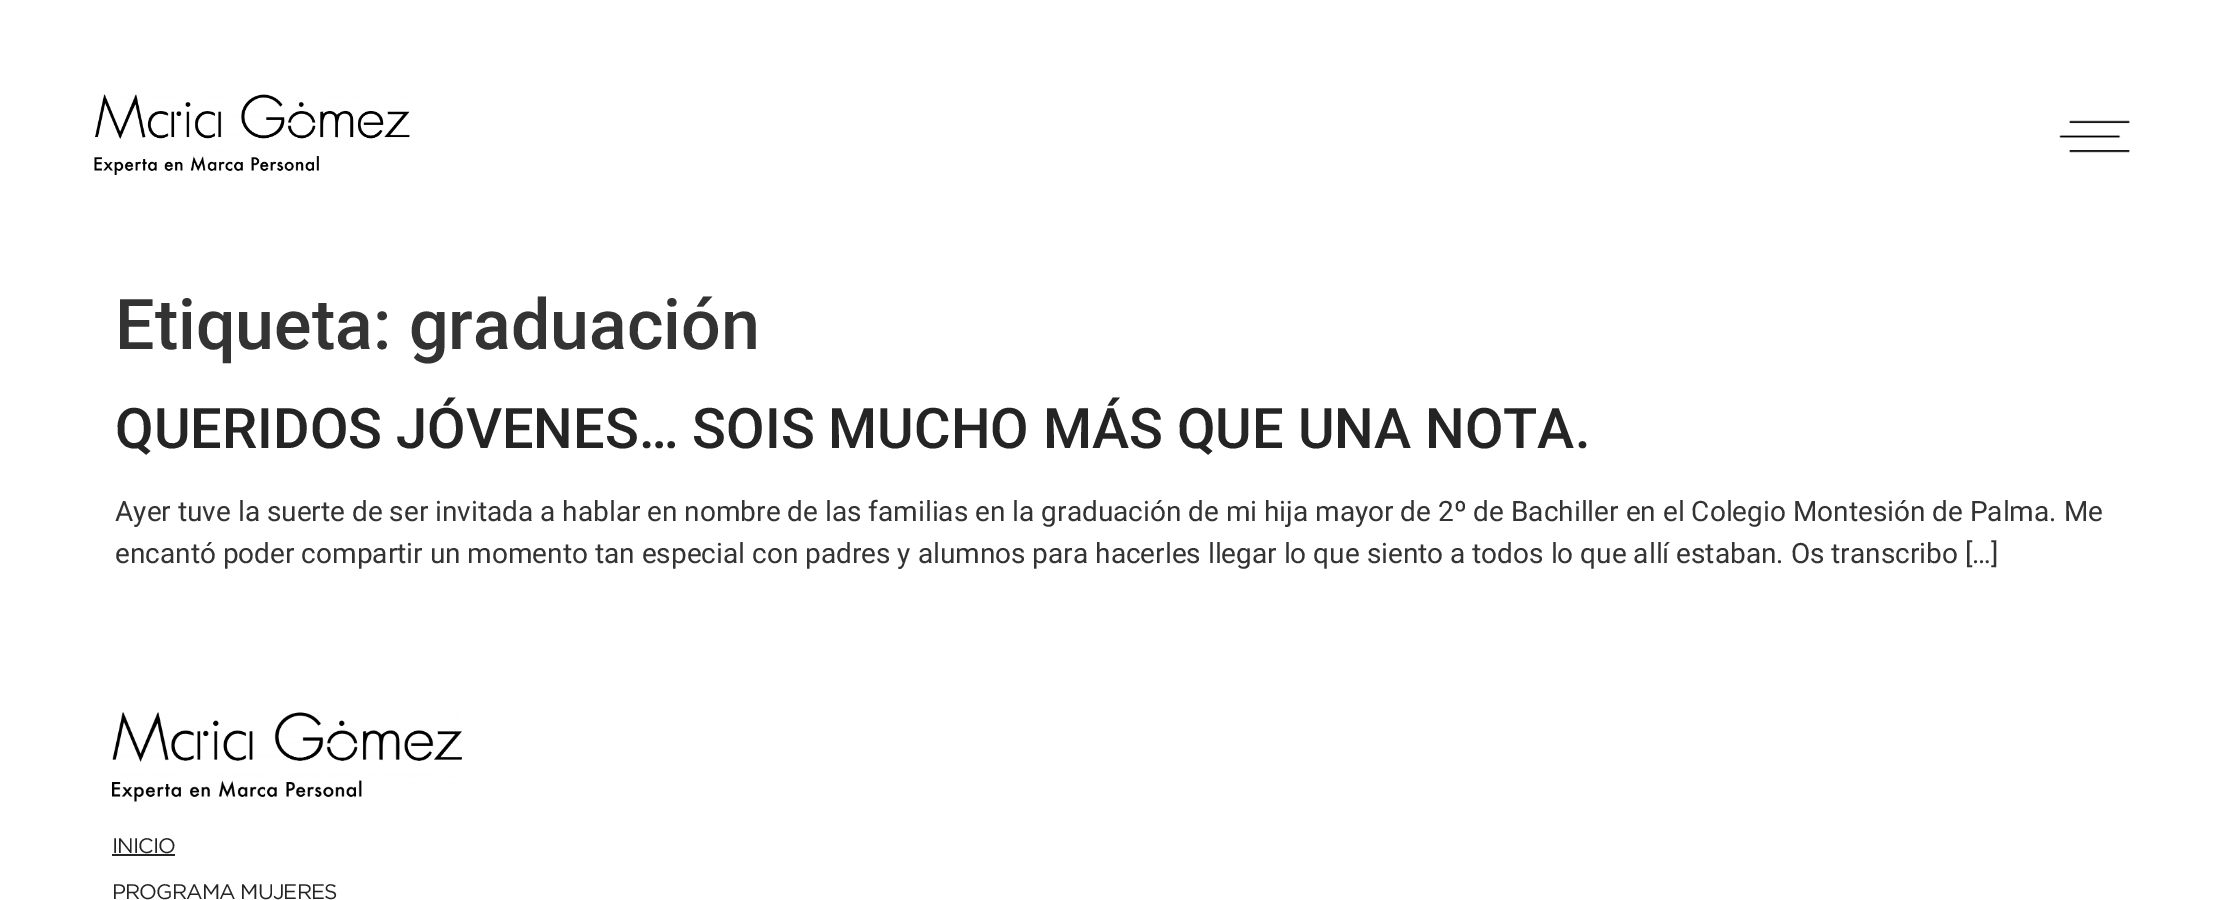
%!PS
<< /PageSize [2223 900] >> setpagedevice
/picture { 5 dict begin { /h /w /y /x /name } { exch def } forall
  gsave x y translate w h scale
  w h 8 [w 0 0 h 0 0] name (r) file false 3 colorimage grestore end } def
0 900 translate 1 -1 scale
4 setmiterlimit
1 setgray
0 0 2223 900 rectfill
(img1.rgb) 94 94 316 81 picture
(img2.rgb) 2059 120 71 33 picture
/Roboto-Medium [70 0 0 -70 0 0] selectfont
0.2 setgray
115 349 moveto (Etiqueta: graduación) show
/Roboto-Medium [56 0 0 -56 0 0] selectfont
0.141 setgray
115 448 moveto (QUERIDOS JÓVENES… SOIS MUCHO MÁS QUE UNA NOTA.) show
/Roboto-Regular [28 0 0 -28 0 0] selectfont
0.2 setgray
115 521 moveto (Ayer tuve la suerte de ser invitada a hablar en nombre de las familias en la graduación de mi hija mayor de 2º de Bachiller en el Colegio Montesión de Palma. Me) show
115 563 moveto (encantó poder compartir un momento tan especial con padres y alumnos para hacerles llegar lo que siento a todos lo que allí estaban. Os transcribo […]) show
(img3.rgb) 112 712 350 90 picture
/Gotham-Regular [21 0 0 -21 0 0] selectfont
0.141 setgray
112 853 moveto -0.9 0 (INICIO) ashow
112 854 63 2 rectfill
112 899 moveto -0.9 0 (PROGRAMA MUJERES) ashow
showpage
